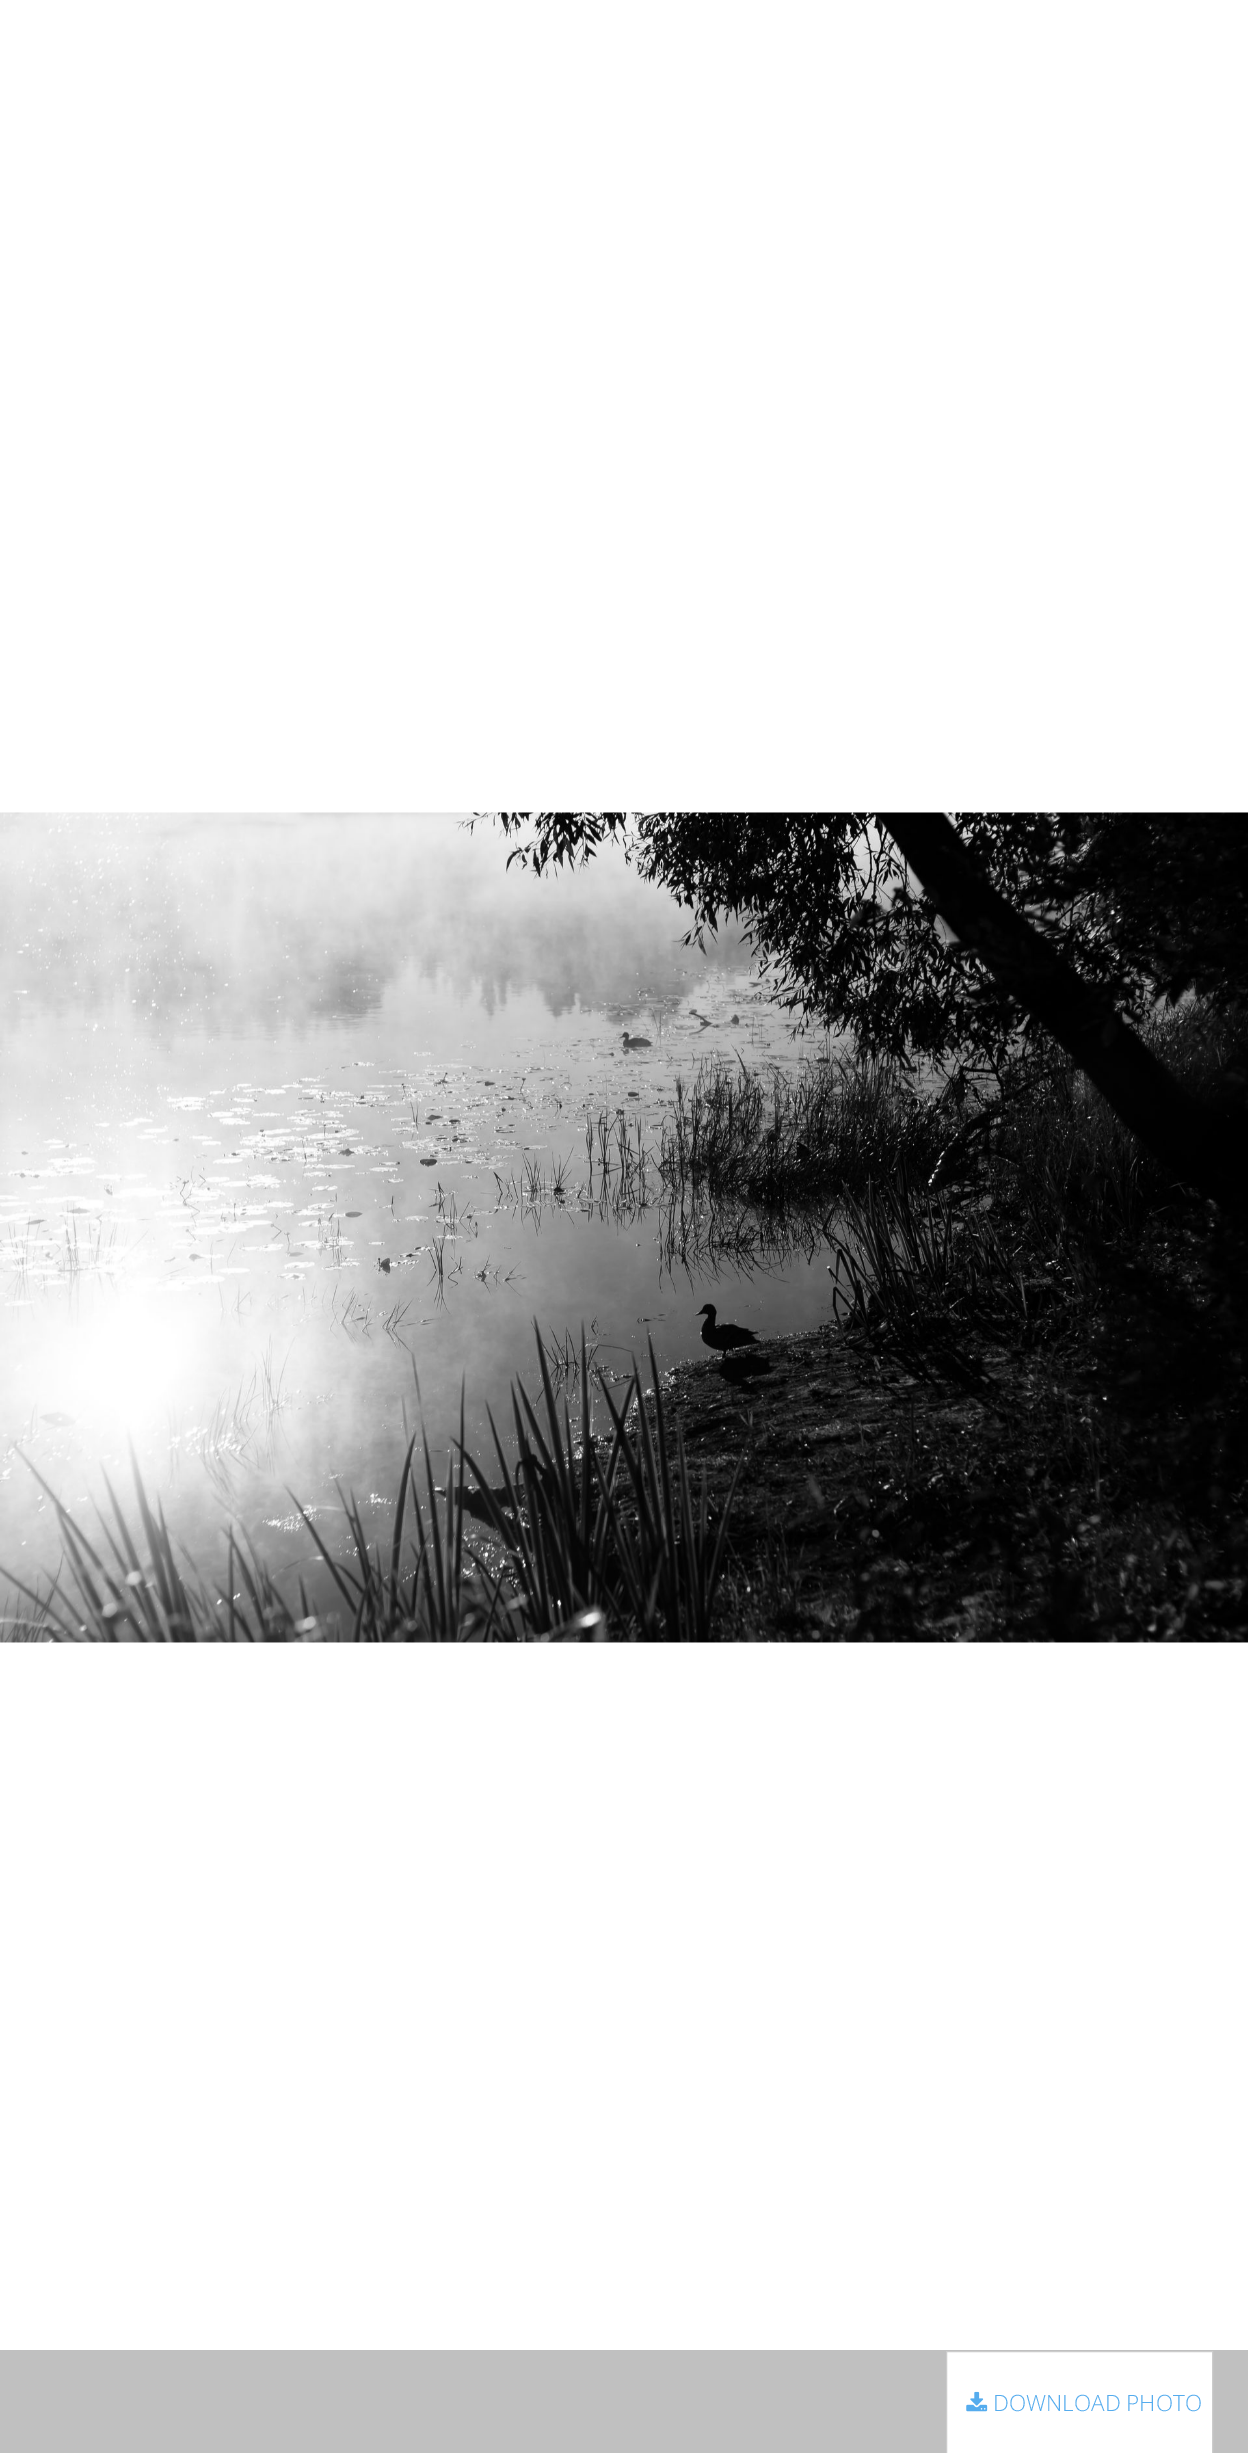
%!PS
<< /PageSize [1248 2453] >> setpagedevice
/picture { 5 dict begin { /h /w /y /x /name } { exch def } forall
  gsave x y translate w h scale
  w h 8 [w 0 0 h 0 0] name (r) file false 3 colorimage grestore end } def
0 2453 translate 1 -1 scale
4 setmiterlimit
1 setgray
0 0 1248 2453 rectfill
(img1.rgb) 0 812 1248 831 picture
0.753 setgray
0 2350 1248 103 rectfill
1 setgray
newpath 946.5 2351.5 moveto 1212.5 2351.5 lineto 1212.5 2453.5 lineto 946.5 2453.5 lineto closepath gsave fill grestore
0.8 setgray
stroke
(img2.rgb) 966 2391 22 21 picture
/OpenSans-Light [22.5 0 0 -22.5 0 0] selectfont
0.333 0.675 0.933 setrgbcolor
993 2411 moveto (DOWNLOAD PHOTO) show
showpage
